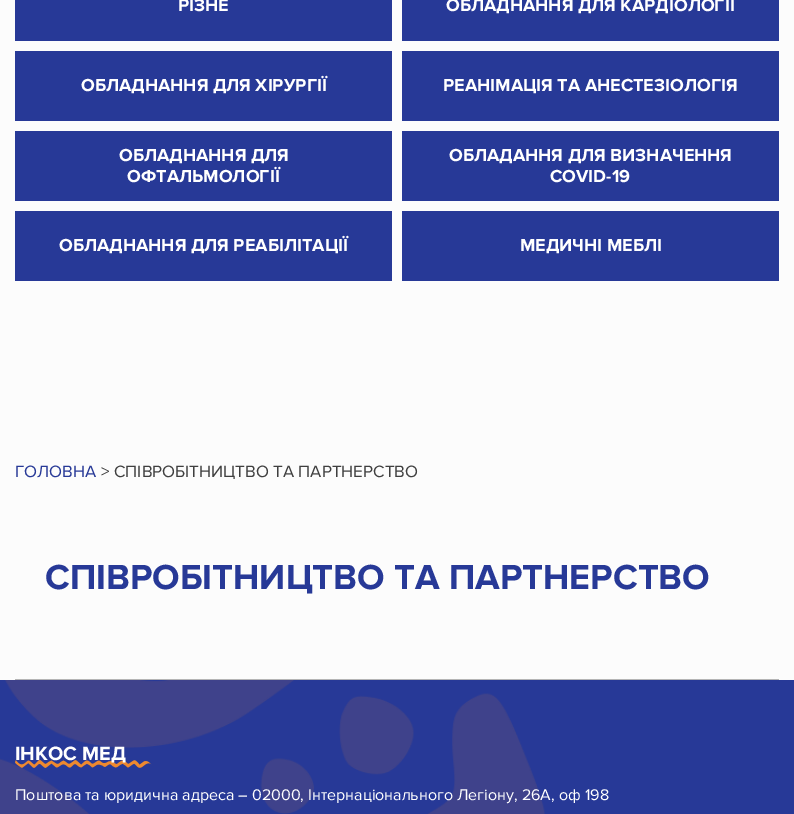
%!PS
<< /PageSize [794 814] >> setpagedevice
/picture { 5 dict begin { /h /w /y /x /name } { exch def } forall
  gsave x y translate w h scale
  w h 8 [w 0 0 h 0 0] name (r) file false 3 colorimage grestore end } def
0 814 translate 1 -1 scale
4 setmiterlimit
0.988 setgray
0 0 794 814 rectfill
0.153 0.224 0.592 setrgbcolor
15 0 377 41 rectfill
/ProximaNova-Bold [18 0 0 -18 0 0] selectfont
1 setgray
178 11 moveto (РІЗНЕ) show
0.153 0.224 0.592 setrgbcolor
402 0 377 41 rectfill
1 setgray
446 11 moveto (ОБЛАДНАННЯ ДЛЯ КАРДІОЛОГІЇ) show
0.153 0.224 0.592 setrgbcolor
15 51 377 70 rectfill
1 setgray
81 91 moveto (ОБЛАДНАННЯ ДЛЯ ХІРУРГІЇ) show
0.153 0.224 0.592 setrgbcolor
402 51 377 70 rectfill
1 setgray
443 91 moveto (РЕАНІМАЦІЯ ТА АНЕСТЕЗІОЛОГІЯ) show
0.153 0.224 0.592 setrgbcolor
15 131 377 70 rectfill
1 setgray
119 161 moveto (ОБЛАДНАННЯ ДЛЯ) show
127 182 moveto (ОФТАЛЬМОЛОГІЇ) show
0.153 0.224 0.592 setrgbcolor
402 131 377 70 rectfill
1 setgray
449 161 moveto (ОБЛАДАННЯ ДЛЯ ВИЗНАЧЕННЯ) show
550 182 moveto (COVID-19) show
0.153 0.224 0.592 setrgbcolor
15 211 377 70 rectfill
1 setgray
59 251 moveto (ОБЛАДНАННЯ ДЛЯ РЕАБІЛІТАЦІЇ) show
0.153 0.224 0.592 setrgbcolor
402 211 377 70 rectfill
1 setgray
520 251 moveto (МЕДИЧНІ МЕБЛІ) show
/ProximaNova-Regular [17 0 0 -17 0 0] selectfont
0.153 0.224 0.592 setrgbcolor
15 477 moveto (ГОЛОВНА) show
0.247 setgray
101 477 moveto (> СПІВРОБІТНИЦТВО ТА ПАРТНЕРСТВО) show
/ProximaNova-Bold [36 0 0 -36 0 0] selectfont
0.153 0.224 0.592 setrgbcolor
45 589 moveto (СПІВРОБІТНИЦТВО ТА ПАРТНЕРСТВО) show
0.71 setgray
15 679 764 1 rectfill
0.153 0.224 0.592 setrgbcolor
0 680 794 134 rectfill
(img1.rgb) 0 680 545 134 picture
(img2.rgb) 15 760 137 8 picture
/ProximaNova-Bold [20 0 0 -20 0 0] selectfont
1 setgray
15 760 moveto (ІНКОС МЕД) show
/ProximaNova-Regular [16 0 0 -16 0 0] selectfont
15 800 moveto (Поштова та юридична адреса – 02000, Інтернаціонального Легіону, 26А, оф 198) show
showpage
